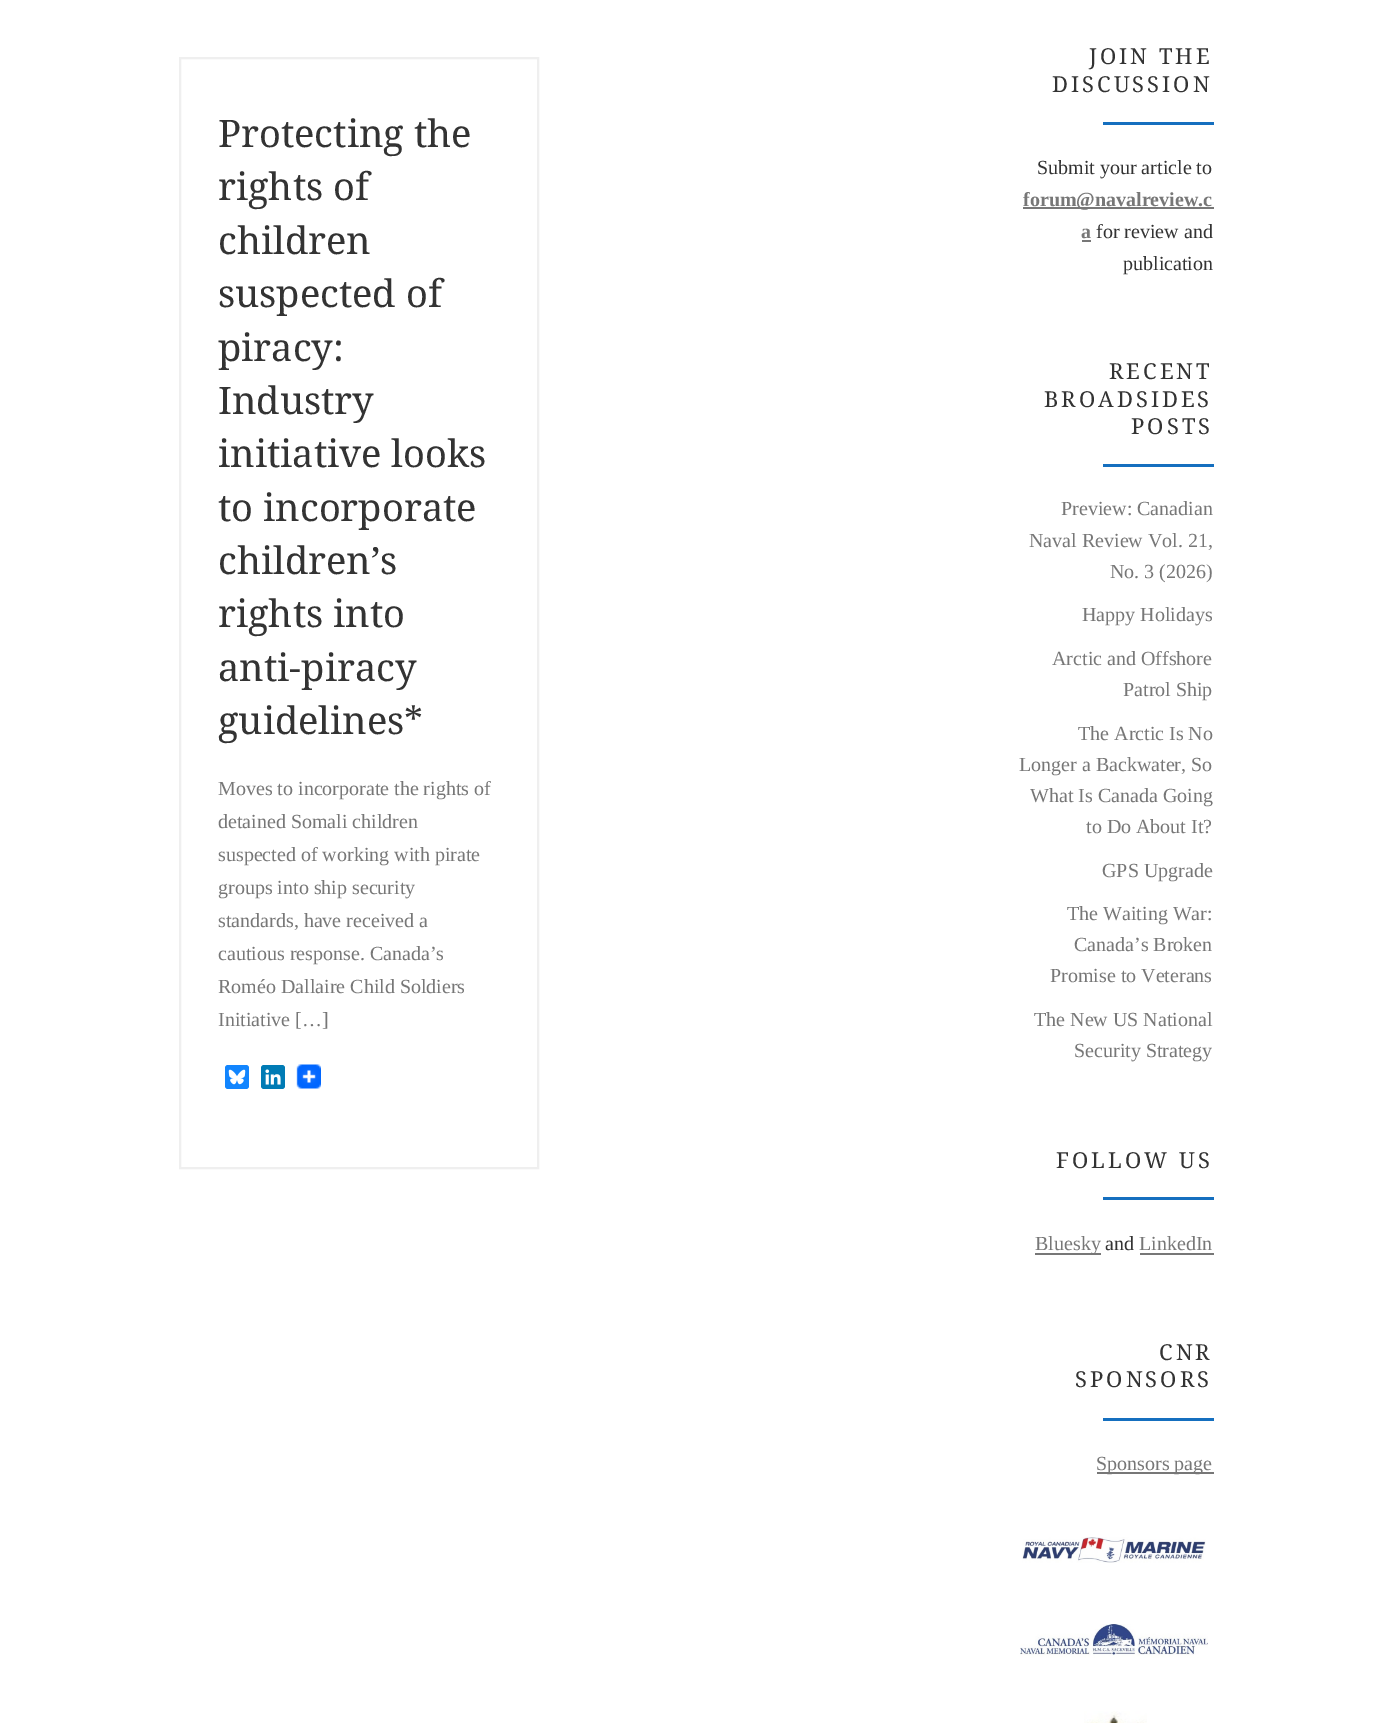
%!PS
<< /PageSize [1390 1723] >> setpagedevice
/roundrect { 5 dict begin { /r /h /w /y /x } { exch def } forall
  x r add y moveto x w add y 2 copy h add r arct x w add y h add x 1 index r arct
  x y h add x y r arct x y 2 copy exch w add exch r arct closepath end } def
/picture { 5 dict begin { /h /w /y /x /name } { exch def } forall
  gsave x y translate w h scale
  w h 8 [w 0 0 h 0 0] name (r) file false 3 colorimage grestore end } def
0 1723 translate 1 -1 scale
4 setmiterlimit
1 setgray
0 0 1390 1723 rectfill
0.937 setgray
2 setlinewidth
180 58 358 1110 rectstroke
/NotoSerif-Regular [38 0 0 -38 0 0] selectfont
0.2 setgray
218 147 moveto (Protecting the) show
218 200 moveto (rights of) show
218 254 moveto (children) show
218 307 moveto (suspected of) show
218 361 moveto (piracy:) show
218 414 moveto (Industry) show
218 467 moveto (initiative looks) show
218 521 moveto (to incorporate) show
218 574 moveto (children’s) show
218 627 moveto (rights into) show
218 681 moveto (anti-piracy) show
218 734 moveto (guidelines*) show
/LiberationSerif-Regular [20 0 0 -20 0 0] selectfont
0.467 setgray
218 795 moveto (Moves to incorporate the rights of) show
218 828 moveto (detained Somali children) show
218 861 moveto (suspected of working with pirate) show
218 894 moveto (groups into ship security) show
218 927 moveto (standards, have received a) show
218 960 moveto (cautious response. Canada’s) show
218 993 moveto (Roméo Dallaire Child Soldiers) show
218 1026 moveto (Initiative […]) show
0.071 0.522 0.996 setrgbcolor
225 1065 24 24 3 roundrect fill
(img1.rgb) 228 1069 18 16 picture
0 0.482 0.71 setrgbcolor
261 1065 24 24 3 roundrect fill
(img2.rgb) 265 1069 16 16 picture
(img3.rgb) 296 1064 25 25 picture
/NotoSerif-Regular [22 0 0 -22 0 0] selectfont
0.2 setgray
1089 64 moveto 3 0 (JOIN THE) ashow
1052 92 moveto 3 0 (DISCUSSION) ashow
0.082 0.435 0.749 setrgbcolor
1103 122 111 3 rectfill
/LiberationSerif-Regular [20 0 0 -20 0 0] selectfont
0.2 setgray
1037 174 moveto (Submit your article to) show
0.467 setgray
1023 207 191 2 rectfill
/LiberationSerif-Bold [20 0 0 -20 0 0] selectfont
1023 206 moveto (forum@navalreview.c) show
1081 238 moveto (a) show
1082 240 9 2 rectfill
/LiberationSerif-Regular [20 0 0 -20 0 0] selectfont
0.2 setgray
1096 238 moveto (for review and) show
1123 270 moveto (publication) show
/NotoSerif-Regular [22 0 0 -22 0 0] selectfont
1109 379 moveto 3 0 (RECENT) ashow
1044 407 moveto 3 0 (BROADSIDES) ashow
1131 434 moveto 3 0 (POSTS) ashow
0.082 0.435 0.749 setrgbcolor
1103 464 111 3 rectfill
/LiberationSerif-Regular [20 0 0 -20 0 0] selectfont
0.467 setgray
1061 515 moveto (Preview: Canadian) show
1029 547 moveto (Naval Review Vol. 21,) show
1110 578 moveto (No. 3 \(2026\)) show
1082 621 moveto (Happy Holidays) show
1052 665 moveto (Arctic and Offshore) show
1123 696 moveto (Patrol Ship) show
1078 740 moveto (The Arctic Is No) show
1019 771 moveto (Longer a Backwater, So) show
1030 802 moveto (What Is Canada Going) show
1086 833 moveto (to Do About It?) show
1102 877 moveto (GPS Upgrade) show
1067 920 moveto (The Waiting War:) show
1074 951 moveto (Canada’s Broken) show
1050 982 moveto (Promise to Veterans) show
1034 1026 moveto (The New US National) show
1074 1057 moveto (Security Strategy) show
/NotoSerif-Regular [22 0 0 -22 0 0] selectfont
0.2 setgray
1056 1168 moveto 3 0 (FOLLOW US) ashow
0.082 0.435 0.749 setrgbcolor
1103 1197 111 3 rectfill
0.467 setgray
1035 1253 66 2 rectfill
/LiberationSerif-Regular [20 0 0 -20 0 0] selectfont
1035 1250 moveto (Bluesky) show
0.2 setgray
1105 1250 moveto (and) show
0.467 setgray
1139 1250 moveto (LinkedIn) show
1140 1253 74 2 rectfill
/NotoSerif-Regular [22 0 0 -22 0 0] selectfont
0.2 setgray
1159 1360 moveto 3 0 (CNR) ashow
1075 1387 moveto 3 0 (SPONSORS) ashow
0.082 0.435 0.749 setrgbcolor
1103 1418 111 3 rectfill
0.467 setgray
1097 1472 117 2 rectfill
/LiberationSerif-Regular [20 0 0 -20 0 0] selectfont
1096 1470 moveto (Sponsors page) show
(img4.rgb) 1022 1537 184 26 picture
(img5.rgb) 1020 1624 188 34 picture
(img6.rgb) 1084 1711 63 12 picture
showpage
